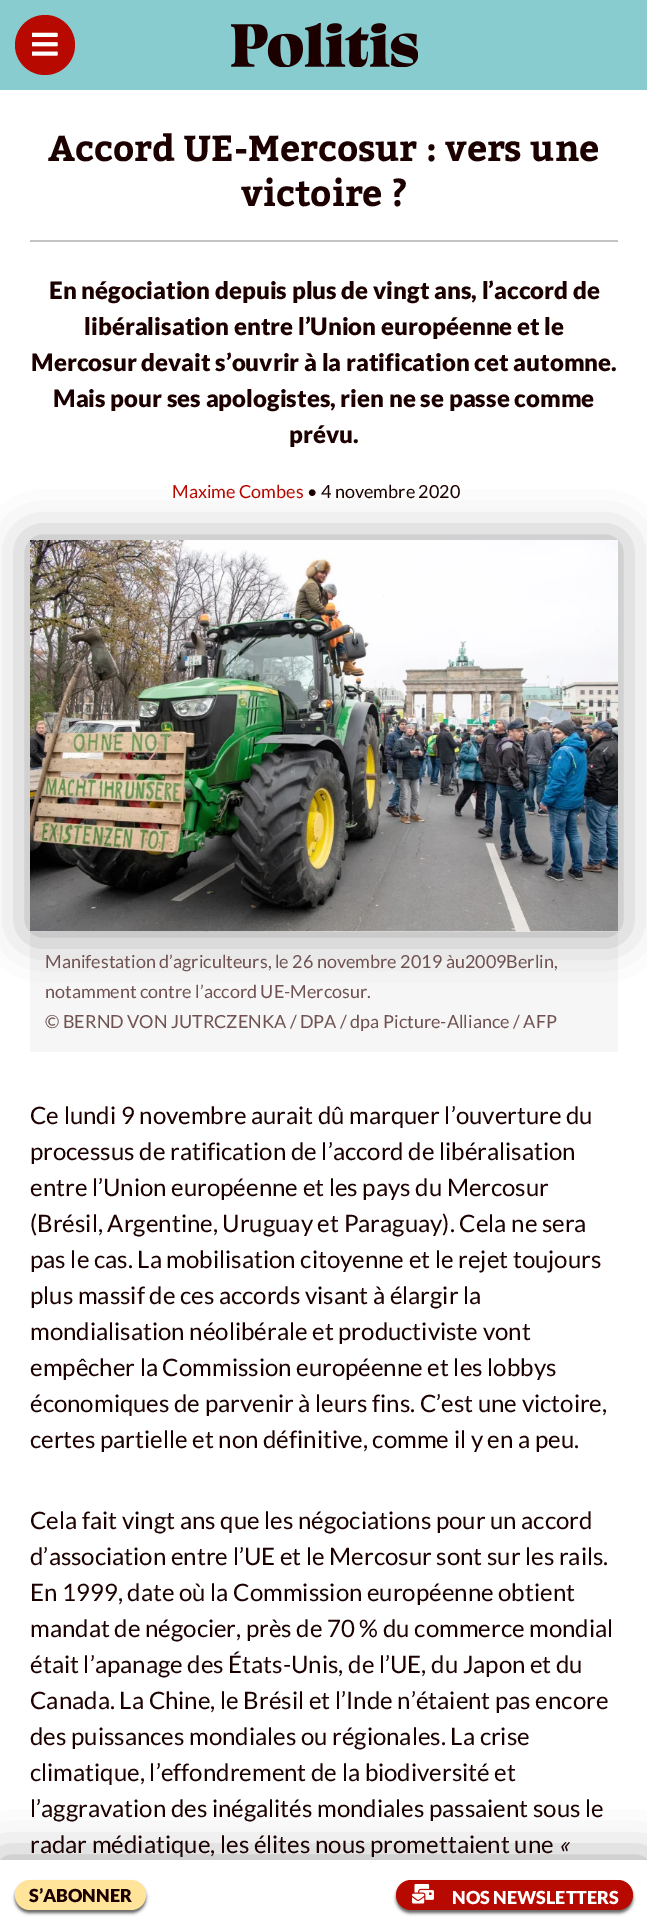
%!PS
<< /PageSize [647 1928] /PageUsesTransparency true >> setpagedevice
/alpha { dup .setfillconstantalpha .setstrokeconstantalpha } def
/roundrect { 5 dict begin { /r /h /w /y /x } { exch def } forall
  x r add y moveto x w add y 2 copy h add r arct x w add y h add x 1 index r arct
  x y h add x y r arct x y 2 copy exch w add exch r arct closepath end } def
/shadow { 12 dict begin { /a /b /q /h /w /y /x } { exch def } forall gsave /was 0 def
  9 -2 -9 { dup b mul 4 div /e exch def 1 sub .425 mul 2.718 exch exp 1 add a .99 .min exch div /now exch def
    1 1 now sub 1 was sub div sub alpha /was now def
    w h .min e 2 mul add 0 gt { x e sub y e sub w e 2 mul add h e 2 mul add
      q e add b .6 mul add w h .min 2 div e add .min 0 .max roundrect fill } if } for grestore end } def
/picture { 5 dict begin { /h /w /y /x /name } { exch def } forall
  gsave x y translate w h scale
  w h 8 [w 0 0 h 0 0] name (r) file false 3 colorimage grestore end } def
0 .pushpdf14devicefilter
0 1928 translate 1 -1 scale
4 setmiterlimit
1 setgray
0 0 647 1928 rectfill
0.537 0.8 0.812 setrgbcolor
0 0 647 90 rectfill
0.718 0.035 0 setrgbcolor
newpath 45 45 30 0 360 arc closepath fill
(img1.rgb) 32 32 26 24 picture
(img2.rgb) 231 23 187 44 picture
/Kadwa-Bold [36 0 0 -36 0 0] selectfont
0.11 0 0 setrgbcolor
48 161 moveto (Accord UE-Mercosur : vers une) show
241 206 moveto (victoire ?) show
0.769 setgray
30 240 588 2 rectfill
/Lato-Black [24 0 0 -24 0 0] selectfont
0.11 0 0 setrgbcolor
49 299 moveto (En négociation depuis plus de vingt ans, l’accord de) show
84 335 moveto (libéralisation entre l’Union européenne et le) show
31 371 moveto (Mercosur devait s’ouvrir à la ratification cet automne.) show
53 407 moveto (Mais pour ses apologistes, rien ne se passe comme) show
289 443 moveto (prévu.) show
/Lato-Regular [18 0 0 -18 0 0] selectfont
0.718 0.035 0 setrgbcolor
172 498 moveto (Maxime Combes) show
0.11 0 0 setrgbcolor
307 498 moveto (• 4 novembre 2020) show
0.965 setgray
30 932 588 120 rectfill
0 setgray
30 540 588 392 0 22.5 0.35 shadow
(img3.rgb) 30 540 588 392 picture
0.439 0.322 0.322 setrgbcolor
45 968 moveto (Manifestation d’agriculteurs, le 26 novembre 2019 àu2009Berlin,) show
45 998 moveto (notamment contre l’accord UE-Mercosur.) show
45 1028 moveto (© BERND VON JUTRCZENKA / DPA / dpa Picture-Alliance / AFP) show
/Lato-Regular [24 0 0 -24 0 0] selectfont
0.11 0 0 setrgbcolor
30 1124 moveto (Ce lundi 9 novembre aurait dû marquer l’ouverture du) show
30 1160 moveto (processus de ratification de l’accord de libéralisation) show
30 1196 moveto (entre l’Union européenne et les pays du Mercosur) show
30 1232 moveto (\(Brésil, Argentine, Uruguay et Paraguay\). Cela ne sera) show
30 1268 moveto (pas le cas. La mobilisation citoyenne et le rejet toujours) show
30 1304 moveto (plus massif de ces accords visant à élargir la) show
30 1340 moveto (mondialisation néolibérale et productiviste vont) show
30 1376 moveto (empêcher la Commission européenne et les lobbys) show
30 1412 moveto (économiques de parvenir à leurs fins. C’est une victoire,) show
30 1448 moveto (certes partielle et non définitive, comme il y en a peu.) show
30 1529 moveto (Cela fait vingt ans que les négociations pour un accord) show
30 1565 moveto (d’association entre l’UE et le Mercosur sont sur les rails.) show
30 1601 moveto (En 1999, date où la Commission européenne obtient) show
30 1637 moveto (mandat de négocier, près de 70 % du commerce mondial) show
30 1673 moveto (était l’apanage des États-Unis, de l’UE, du Japon et du) show
30 1709 moveto (Canada. La Chine, le Brésil et l’Inde n’étaient pas encore) show
30 1745 moveto (des puissances mondiales ou régionales. La crise) show
30 1781 moveto (climatique, l’effondrement de la biodiversité et) show
30 1817 moveto (l’aggravation des inégalités mondiales passaient sous le) show
30 1853 moveto (radar médiatique, les élites nous promettaient une) show
/Lato-Italic [24 0 0 -24 0 0] selectfont
558 1853 moveto («) show
0 setgray
0 1860 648 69 0 22.5 0.35 shadow
1 setgray
0 1860 647 68 rectfill
0 setgray
15 1883 131 30 15 1.5 0.6 shadow
1 0.894 0.604 setrgbcolor
15 1880 131 30 15 roundrect fill
/Lato-Black [18 0 0 -18 0 0] selectfont
0.11 0 0 setrgbcolor
29 1902 moveto (S’ABONNER) show
0 setgray
396 1883 237 30 15 1.5 0.6 shadow
0.718 0.035 0 setrgbcolor
396 1880 237 30 15 roundrect fill
(img4.rgb) 412 1884 22 20 picture
1 setgray
452 1904 moveto (NOS NEWSLETTERS) show
.poppdf14devicefilter showpage
